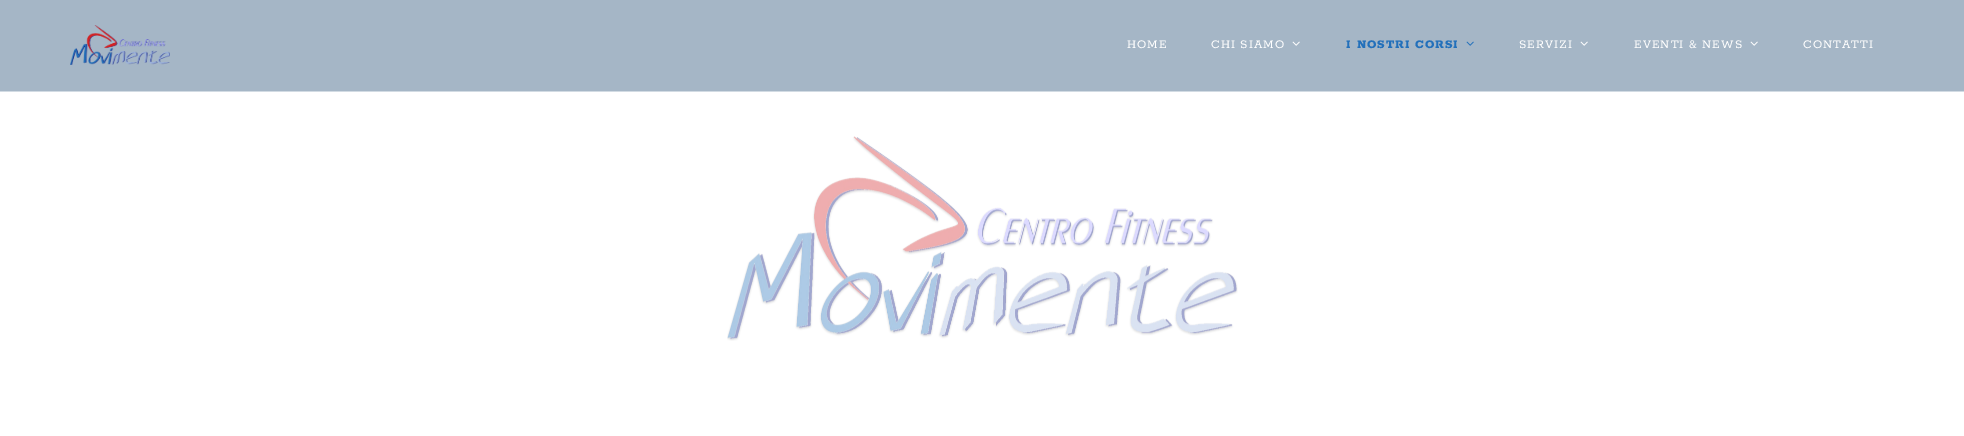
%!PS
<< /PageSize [1964 436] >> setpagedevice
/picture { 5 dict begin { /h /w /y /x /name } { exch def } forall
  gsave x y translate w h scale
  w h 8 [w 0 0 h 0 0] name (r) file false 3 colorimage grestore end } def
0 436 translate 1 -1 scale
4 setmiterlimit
1 setgray
0 0 1964 436 rectfill
0.647 0.714 0.776 setrgbcolor
0 0 1964 91 rectfill
0.824 0.859 0.89 setrgbcolor
0 91 1964 1 rectfill
(img1.rgb) 70 25 100 40 picture
/Rokkitt-Regular [13 0 0 -13 0 0] selectfont
1 setgray
1127 48 moveto 1 0 (HOME) ashow
1211 48 moveto 1 0 (CHI SIAMO) ashow
(img2.rgb) 1292 41 8 5 picture
/Rokkitt-ExtraBold [13 0 0 -13 0 0] selectfont
0.133 0.439 0.733 setrgbcolor
1346 48 moveto 1 0 (I NOSTRI CORSI) ashow
(img3.rgb) 1466 41 8 5 picture
/Rokkitt-Regular [13 0 0 -13 0 0] selectfont
1 setgray
1519 48 moveto 1 0 (SERVIZI) ashow
(img2.rgb) 1580 41 8 5 picture
1634 48 moveto 1 0 (EVENTI & NEWS) ashow
(img2.rgb) 1750 41 8 5 picture
1803 48 moveto 1 0 (CONTATTI) ashow
(img4.rgb) 727 136 511 205 picture
showpage
